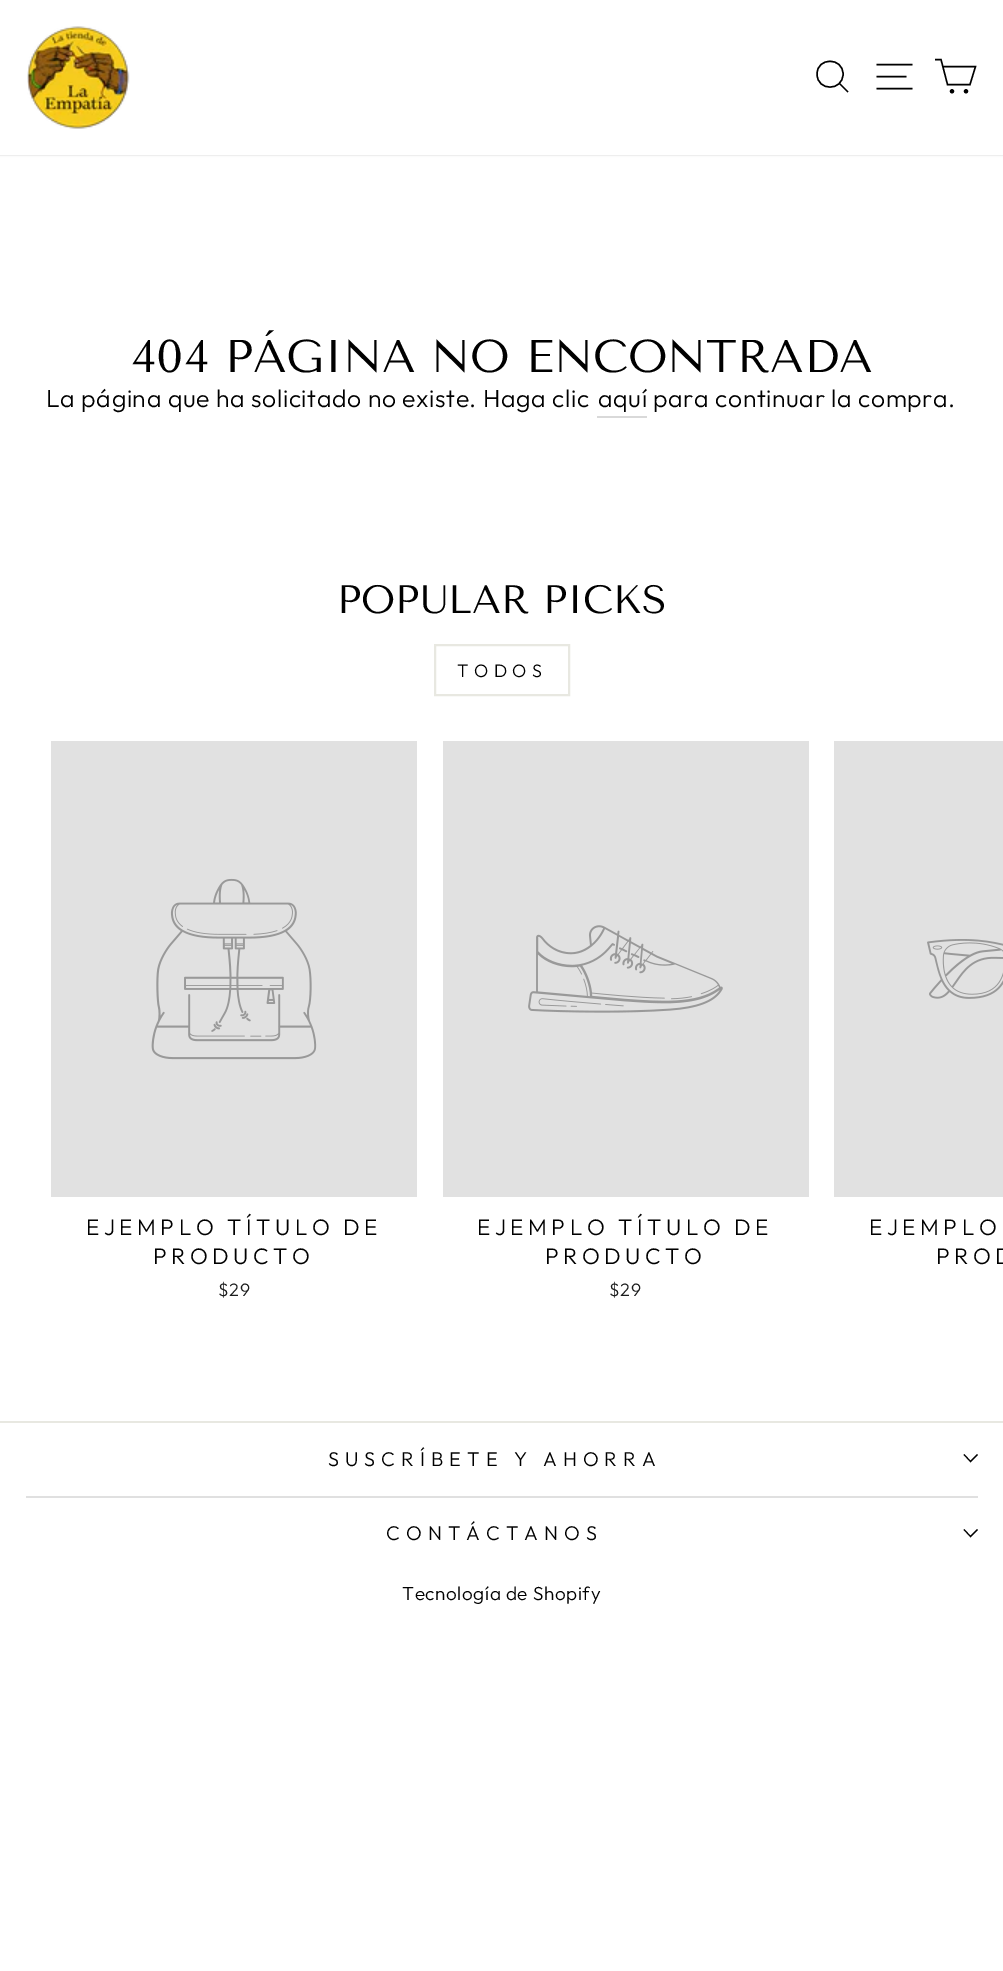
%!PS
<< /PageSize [1003 1971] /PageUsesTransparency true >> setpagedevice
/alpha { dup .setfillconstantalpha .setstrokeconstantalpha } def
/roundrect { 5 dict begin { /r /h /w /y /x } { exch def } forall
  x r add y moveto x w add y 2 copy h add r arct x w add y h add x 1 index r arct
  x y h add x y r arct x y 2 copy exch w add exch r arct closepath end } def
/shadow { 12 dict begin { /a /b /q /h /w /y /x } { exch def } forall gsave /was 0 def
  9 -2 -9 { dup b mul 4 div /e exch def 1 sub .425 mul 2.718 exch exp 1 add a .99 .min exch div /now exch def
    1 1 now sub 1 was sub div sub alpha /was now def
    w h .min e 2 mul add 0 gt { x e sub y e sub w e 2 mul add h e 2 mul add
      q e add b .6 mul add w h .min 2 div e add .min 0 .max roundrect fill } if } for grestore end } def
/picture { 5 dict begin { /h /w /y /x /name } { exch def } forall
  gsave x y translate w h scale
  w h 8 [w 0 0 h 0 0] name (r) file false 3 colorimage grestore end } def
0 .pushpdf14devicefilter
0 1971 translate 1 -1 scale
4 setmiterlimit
1 setgray
0 0 1003 1971 rectfill
0 setgray
0 0 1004 155 0 1 0.2 shadow
1 setgray
0 0 1003 155 rectfill
(img1.rgb) 27 26 103 103 picture
0 setgray
1.4 setlinewidth
newpath 843 74 moveto 843 91.5 817 91.5 817 74 curveto 817 57 843 57 843 74 curveto closepath 848 92 moveto 839.5 83.5 lineto stroke
newpath 876.5 64.5 moveto 912.5 64.5 lineto 876.5 76.5 moveto 906.5 76.5 lineto 876.5 88.5 moveto 912.5 88.5 lineto stroke
newpath 943 66.5 moveto 975.5 66.5 lineto 970 84.5 lineto 947.5 84.5 lineto 941 59.5 lineto 935 59.5 lineto stroke
newpath 952 91.3 1.4 0 360 arc closepath gsave fill grestore
stroke
newpath 966 91.3 1.4 0 360 arc closepath gsave fill grestore
stroke
/TenorSans-Regular [45.9 0 0 -45.9 0 0] selectfont
131 372 moveto (404 PÁGINA NO ENCONTRADA) show
/Outfit-Light [24.8 0 0 -24.8 0 0] selectfont
46 407 moveto 0.6 0 (La página que ha solicitado no existe. Haga clic) ashow
0.851 setgray
597 416 50 2 rectfill
0 setgray
598 407 moveto 0.6 0 (aquí) ashow
653 407 moveto 0.6 0 (para continuar la compra.) ashow
/TenorSans-Regular [39.5 0 0 -39.5 0 0] selectfont
337 613 moveto (POPULAR PICKS) show
0.91 0.91 0.882 setrgbcolor
2 setlinewidth
435 645 134 50 rectstroke
/Outfit-Light [18 0 0 -18 0 0] selectfont
0 setgray
457 677 moveto 5.5 0 (TODOS) ashow
0.882 setgray
51 741 366 456 rectfill
(img2.rgb) 151 878 166 182 picture
/Outfit-Light [22.5 0 0 -22.5 0 0] selectfont
0 setgray
86 1235 moveto 4.5 0 (EJEMPLO TÍTULO DE) ashow
153 1264 moveto 4.5 0 (PRODUCTO) ashow
/Outfit-Light [18 0 0 -18 0 0] selectfont
0.11 0.114 0.114 setrgbcolor
218 1296 moveto 0.6 0 ($29) ashow
0.882 setgray
443 741 366 456 rectfill
(img3.rgb) 528 925 195 88 picture
/Outfit-Light [22.5 0 0 -22.5 0 0] selectfont
0 setgray
477 1235 moveto 4.5 0 (EJEMPLO TÍTULO DE) ashow
545 1264 moveto 4.5 0 (PRODUCTO) ashow
/Outfit-Light [18 0 0 -18 0 0] selectfont
0.11 0.114 0.114 setrgbcolor
609 1296 moveto 0.6 0 ($29) ashow
0.882 setgray
834 741 169 456 rectfill
(img4.rgb) 927 939 76 60 picture
/Outfit-Light [22.5 0 0 -22.5 0 0] selectfont
0 setgray
869 1235 moveto 4.5 0 (EJEMPLO) ashow
936 1264 moveto 4.5 0 (PROD) ashow
0.91 0.91 0.882 setrgbcolor
0 1421 1003 2 rectfill
/Outfit-Light [19.9 0 0 -19.9 0 0] selectfont
0 setgray
328 1466 moveto 6 0 (SUSCRÍBETE Y AHORRA) ashow
1.1 setlinewidth
newpath 964 1454.5 moveto 970.5 1461.5 lineto 977.5 1454.5 lineto stroke
0.878 setgray
26 1496 952 2 rectfill
0 setgray
386 1540 moveto 6 0 (CONTÁCTANOS) ashow
newpath 964 1529.5 moveto 970.5 1536.5 lineto 977.5 1529.5 lineto stroke
/Outfit-Light [18.9 0 0 -18.9 0 0] selectfont
402 1600 moveto 0.6 0 (Tecnología de Shopify) ashow
.poppdf14devicefilter showpage
